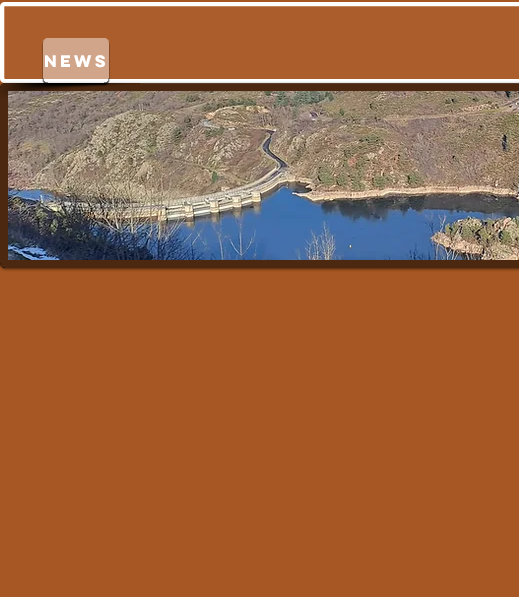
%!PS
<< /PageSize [519 597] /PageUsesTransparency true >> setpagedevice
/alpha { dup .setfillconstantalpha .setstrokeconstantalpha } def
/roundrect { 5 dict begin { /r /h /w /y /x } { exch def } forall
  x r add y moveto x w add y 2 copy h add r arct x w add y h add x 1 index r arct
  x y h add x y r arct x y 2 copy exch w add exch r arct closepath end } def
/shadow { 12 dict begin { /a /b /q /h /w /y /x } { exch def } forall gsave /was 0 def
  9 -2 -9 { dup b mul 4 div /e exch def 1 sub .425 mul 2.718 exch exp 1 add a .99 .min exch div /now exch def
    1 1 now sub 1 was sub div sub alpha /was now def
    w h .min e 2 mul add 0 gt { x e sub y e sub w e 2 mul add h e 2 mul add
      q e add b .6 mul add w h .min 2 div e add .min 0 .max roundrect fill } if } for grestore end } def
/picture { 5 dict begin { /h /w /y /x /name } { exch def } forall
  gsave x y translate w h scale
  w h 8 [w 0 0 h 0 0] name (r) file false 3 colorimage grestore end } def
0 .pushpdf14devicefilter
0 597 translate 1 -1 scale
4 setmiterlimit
0.655 0.341 0.137 setrgbcolor
0 0 519 597 rectfill
0.671 0.369 0.173 setrgbcolor
2 4 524 77 3 roundrect gsave fill grestore
1 setgray
4 setlinewidth
stroke
(img1.rgb) 0 83 140 17 picture
gsave
newpath 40 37 moveto 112 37 lineto 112 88 lineto 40 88 lineto closepath 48 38 moveto 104 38 lineto 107 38 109 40 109 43 curveto 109 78 lineto 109 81 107 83 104 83 curveto 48 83 lineto 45 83 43 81 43 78 curveto 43 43 lineto 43 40 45 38 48 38 curveto closepath eoclip newpath
0 setgray
43 40 66 45 5 0.5 0.78 shadow
grestore
0.44 alpha
43 38 66 45 5 roundrect fill
/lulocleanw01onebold-Bold [15 0 0 -15 0 0] selectfont
1 alpha
44 67 moveto (NEWS) show
gsave
newpath 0 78 moveto 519 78 lineto 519 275 lineto 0 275 lineto closepath 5 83 moveto 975 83 lineto 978 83 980 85 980 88 curveto 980 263 lineto 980 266 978 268 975 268 curveto 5 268 lineto 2 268 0 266 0 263 curveto 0 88 lineto 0 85 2 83 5 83 curveto closepath eoclip newpath
0 setgray
0 84 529 185 5 1.5 0.5 shadow
grestore
0.32 alpha
0 setgray
0 83 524 185 5 roundrect fill
8 setlinewidth
4 87 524 177 1 roundrect stroke
1 alpha
(img2.rgb) 8 91 511 169 picture
.poppdf14devicefilter showpage
